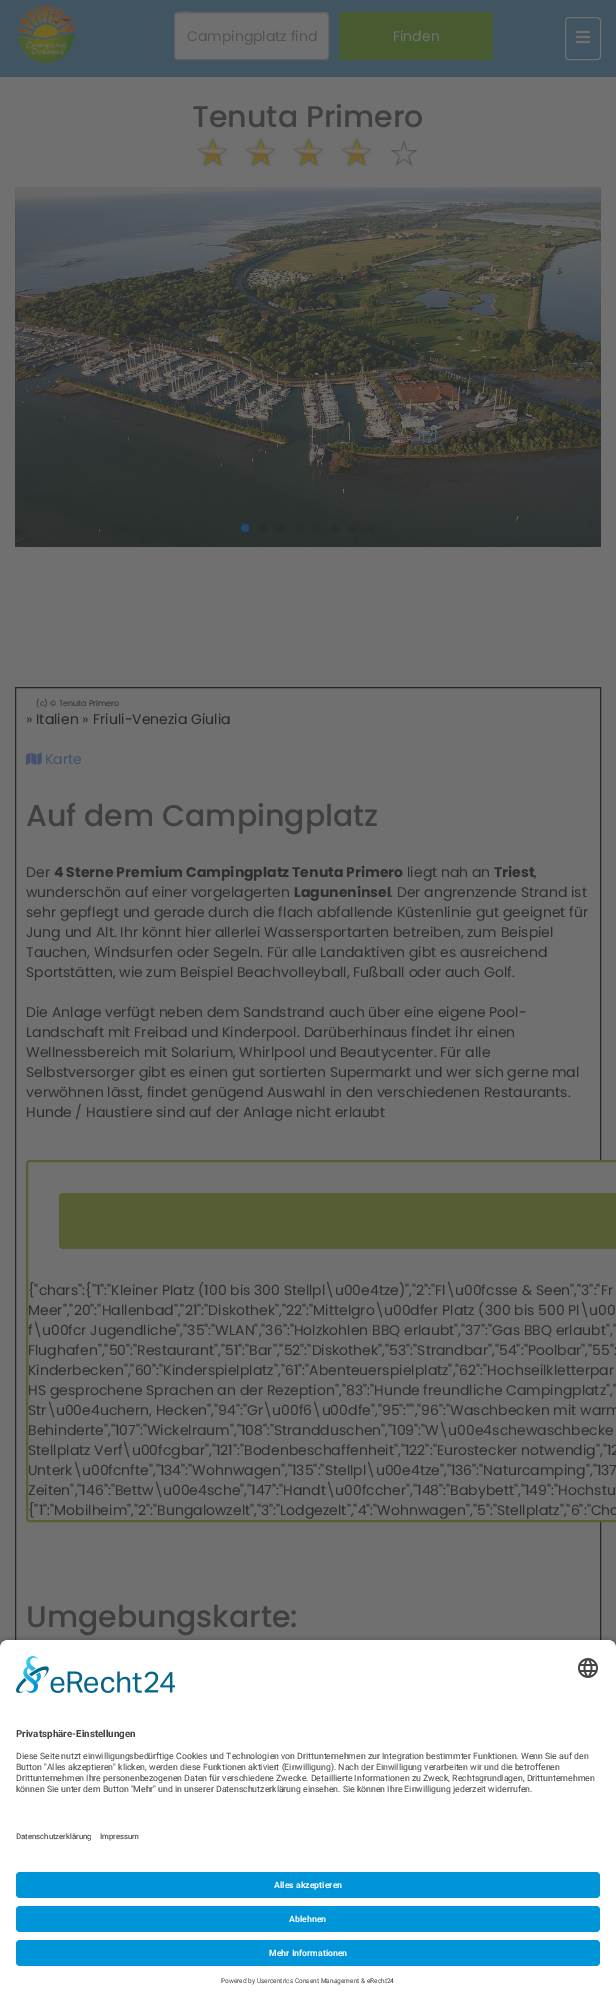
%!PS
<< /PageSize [616 2002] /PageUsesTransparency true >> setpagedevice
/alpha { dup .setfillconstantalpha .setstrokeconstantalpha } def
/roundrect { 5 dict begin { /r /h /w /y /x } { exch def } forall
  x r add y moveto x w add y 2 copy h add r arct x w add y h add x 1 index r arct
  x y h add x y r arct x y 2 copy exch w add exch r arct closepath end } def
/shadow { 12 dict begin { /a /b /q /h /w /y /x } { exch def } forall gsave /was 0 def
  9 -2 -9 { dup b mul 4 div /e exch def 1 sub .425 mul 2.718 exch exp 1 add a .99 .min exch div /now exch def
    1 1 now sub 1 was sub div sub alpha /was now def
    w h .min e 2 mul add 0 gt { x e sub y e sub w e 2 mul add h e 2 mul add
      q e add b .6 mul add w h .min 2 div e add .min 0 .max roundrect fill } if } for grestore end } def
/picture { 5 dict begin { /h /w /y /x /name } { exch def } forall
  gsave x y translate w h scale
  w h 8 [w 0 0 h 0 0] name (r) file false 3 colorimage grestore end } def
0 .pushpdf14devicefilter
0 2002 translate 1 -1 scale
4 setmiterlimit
0.439 setgray
0 0 616 2002 rectfill
0.255 0.329 0.38 setrgbcolor
0 0 616 77 rectfill
(img1.rgb) 17 5 59 59 picture
0.439 setgray
174 12 155 48 4 roundrect fill
0.42 setgray
newpath 178 14 moveto 325 14 lineto 327 14 328 15 328 17 curveto 328 15 328 14 326 13 curveto 202 13 lineto 195 13 175 8 175 17 curveto 175 15 176 14 178 14 curveto closepath fill
0.38 setgray
174.5 12.5 154 47 3.5 roundrect stroke
/Poppins-Regular [14 0 0 -14 0 0] selectfont
0.322 setgray
187 41 moveto (Campingplatz find) show
0.282 0.357 0.188 setrgbcolor
339 12 154 48 4 roundrect fill
0.439 setgray
393 41 moveto (Finden) show
565.5 17.5 35 42 3.5 roundrect stroke
(img2.rgb) 576 30 14 14 picture
/Poppins-Medium [30 0 0 -30 0 0] selectfont
0.243 0.247 0.247 setrgbcolor
192 127 moveto (Tenuta Primero) show
(img3.rgb) 197 137 32 31 picture
(img4.rgb) 245 137 32 31 picture
(img5.rgb) 293 137 32 31 picture
(img6.rgb) 341 137 32 31 picture
(img7.rgb) 391 140 26 26 picture
(img8.rgb) 15 187 586 360 picture
0.141 0.282 0.439 setrgbcolor
newpath 245 528 4 0 360 arc closepath fill
0.165 0.184 0.176 setrgbcolor
newpath 263 528 4 0 360 arc closepath fill
newpath 281 528 4 0 360 arc closepath fill
0.2 alpha
0.141 setgray
newpath 299 528 4 0 360 arc closepath fill
newpath 317 528 4 0 360 arc closepath fill
newpath 335 528 4 0 360 arc closepath fill
newpath 353 528 4 0 360 arc closepath fill
newpath 371 528 4 0 360 arc closepath fill
1 alpha
0.153 setgray
15.5 687.5 585 1266 rectstroke
/Poppins-Regular [8 0 0 -8 0 0] selectfont
0.18 setgray
36 706 moveto (\(c\) © Tenuta Primero) show
/Poppins-Regular [14 0 0 -14 0 0] selectfont
26 724 moveto (») show
0.153 setgray
36 724 moveto (Italien) show
0.18 setgray
82 724 moveto (») show
0.153 setgray
93 724 moveto (Friuli-Venezia Giulia) show
(img9.rgb) 26 752 16 13 picture
0.259 0.314 0.42 setrgbcolor
45 764 moveto (Karte) show
/Poppins-Medium [30 0 0 -30 0 0] selectfont
0.243 0.247 0.247 setrgbcolor
26 826 moveto (Auf dem Campingplatz) show
/Poppins-Regular [14 0 0 -14 0 0] selectfont
0.18 setgray
26 877 moveto (Der) show
/Poppins-Bold [14 0 0 -14 0 0] selectfont
54 877 moveto (4 Sterne Premium Campingplatz Tenuta Primero) show
/Poppins-Regular [14 0 0 -14 0 0] selectfont
407 877 moveto (liegt nah an) show
/Poppins-Bold [14 0 0 -14 0 0] selectfont
494 877 moveto (Triest) show
/Poppins-Regular [14 0 0 -14 0 0] selectfont
534 877 moveto (,) show
26 897 moveto (wunderschön auf einer vorgelagerten) show
/Poppins-Bold [14 0 0 -14 0 0] selectfont
294 897 moveto (Laguneninsel) show
/Poppins-Regular [14 0 0 -14 0 0] selectfont
390 897 moveto (. Der angrenzende Strand ist) show
26 917 moveto (sehr gepflegt und gerade durch die flach abfallende Küstenlinie gut geeignet für) show
26 937 moveto (Jung und Alt. Ihr könnt hier allerlei Wassersportarten betreiben, zum Beispiel) show
26 957 moveto (Tauchen, Windsurfen oder Segeln. Für alle Landaktiven gibt es ausreichend) show
26 977 moveto (Sportstätten, wie zum Beispiel Beachvolleyball, Fußball oder auch Golf.) show
26 1017 moveto (Die Anlage verfügt neben dem Sandstrand auch über eine eigene Pool-) show
26 1037 moveto (Landschaft mit Freibad und Kinderpool. Darüberhinaus findet ihr einen) show
26 1057 moveto (Wellnessbereich mit Solarium, Whirlpool und Beautycenter. Für alle) show
26 1077 moveto (Selbstversorger gibt es einen gut sortierten Supermarkt und wer sich gerne mal) show
26 1097 moveto (verwöhnen lässt, findet genügend Auswahl in den verschiedenen Restaurants.) show
26 1117 moveto (Hunde / Haustiere sind auf der Anlage nicht erlaubt) show
0.439 setgray
27 1161 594 360 3 roundrect gsave fill grestore
0.337 0.365 0.208 setrgbcolor
2 setlinewidth
stroke
59 1193 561 56 4 roundrect fill
0.18 setgray
28 1295 moveto ({"chars":{"1":"Kleiner Platz \(100 bis 300 Stellpl\\u00e4tze\)","2":"Fl\\u00fcsse & Seen","3":"Fr) show
28 1315 moveto (Meer","20":"Hallenbad","21":"Diskothek","22":"Mittelgro\\u00dfer Platz \(300 bis 500 Pl\\u00) show
28 1335 moveto (f\\u00fcr Jugendliche","35":"WLAN","36":"Holzkohlen BBQ erlaubt","37":"Gas BBQ erlaubt",") show
28 1355 moveto (Flughafen","50":"Restaurant","51":"Bar","52":"Diskothek","53":"Strandbar","54":"Poolbar","55":) show
28 1375 moveto (Kinderbecken","60":"Kinderspielplatz","61":"Abenteuerspielplatz","62":"Hochseilkletterpar) show
28 1395 moveto (HS gesprochene Sprachen an der Rezeption","83":"Hunde freundliche Campingplatz",") show
28 1415 moveto (Str\\u00e4uchern, Hecken","94":"Gr\\u00f6\\u00dfe","95":"","96":"Waschbecken mit warm) show
28 1435 moveto (Behinderte","107":"Wickelraum","108":"Strandduschen","109":"W\\u00e4schewaschbecke) show
28 1455 moveto (Stellplatz Verf\\u00fcgbar","121":"Bodenbeschaffenheit","122":"Eurostecker notwendig","12) show
28 1475 moveto (Unterk\\u00fcnfte","134":"Wohnwagen","135":"Stellpl\\u00e4tze","136":"Naturcamping","137) show
28 1495 moveto (Zeiten","146":"Bettw\\u00e4sche","147":"Handt\\u00fccher","148":"Babybett","149":"Hochstu) show
28 1515 moveto ({"1":"Mobilheim","2":"Bungalowzelt","3":"Lodgezelt","4":"Wohnwagen","5":"Stellplatz","6":"Cha) show
/Poppins-Medium [30 0 0 -30 0 0] selectfont
0.243 0.247 0.247 setrgbcolor
26 1627 moveto (Umgebungskarte:) show
0 setgray
0 1643 616 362 8 3.5 0.8 shadow
1 setgray
newpath 8 1640 moveto 608 1640 lineto 612.5 1640 616 1643.5 616 1648 curveto 616 1815 lineto 0 1815 lineto 0 1648 lineto 0 1643.5 3.5 1640 8 1640 curveto closepath fill
(img10.rgb) 16 1656 160 37 picture
(img11.rgb) 578 1658 20 20 picture
/Roboto-Bold [9.8 0 0 -9.8 0 0] selectfont
0.267 setgray
16 1737 moveto (Privatsphäre-Einstellungen) show
/Roboto-Regular [8.75 0 0 -8.75 0 0] selectfont
16 1759 moveto (Diese Seite nutzt einwilligungsbedürftige Cookies und Technologien von Drittunternehmen zur Integration bestimmter Funktionen. Wenn Sie auf den) show
16 1770 moveto (Button "Alles akzeptieren" klicken, werden diese Funktionen aktiviert \(Einwilligung\). Nach der Einwilligung verarbeiten wir und die betroffenen) show
16 1781 moveto (Drittunternehmen Ihre personenbezogenen Daten für verschiedene Zwecke. Detaillierte Informationen zu Zweck, Rechtsgrundlagen, Drittunternehmen) show
16 1792 moveto (können Sie unter dem Button "Mehr" und in unserer Datenschutzerklärung einsehen. Sie können Ihre Einwilligung jederzeit widerrufen.) show
1 setgray
0 1815 616 187 rectfill
/Roboto-Regular [7.75 0 0 -7.75 0 0] selectfont
0.18 setgray
16 1839 moveto (Datenschutzerklärung) show
100 1839 moveto (Impressum) show
0 0.58 0.847 setrgbcolor
16 1872 584 26 4 roundrect fill
/Roboto-Bold [8.75 0 0 -8.75 0 0] selectfont
1 setgray
274 1888 moveto (Alles akzeptieren) show
0 0.58 0.847 setrgbcolor
16 1906 584 26 4 roundrect fill
1 setgray
289 1922 moveto (Ablehnen) show
0 0.58 0.847 setrgbcolor
16 1940 584 26 4 roundrect fill
1 setgray
269 1956 moveto (Mehr Informationen) show
/Roboto-Regular [6.55 0 0 -6.55 0 0] selectfont
0.267 setgray
221 1983 moveto (Powered by Usercentrics Consent Management & eRecht24) show
.poppdf14devicefilter showpage
